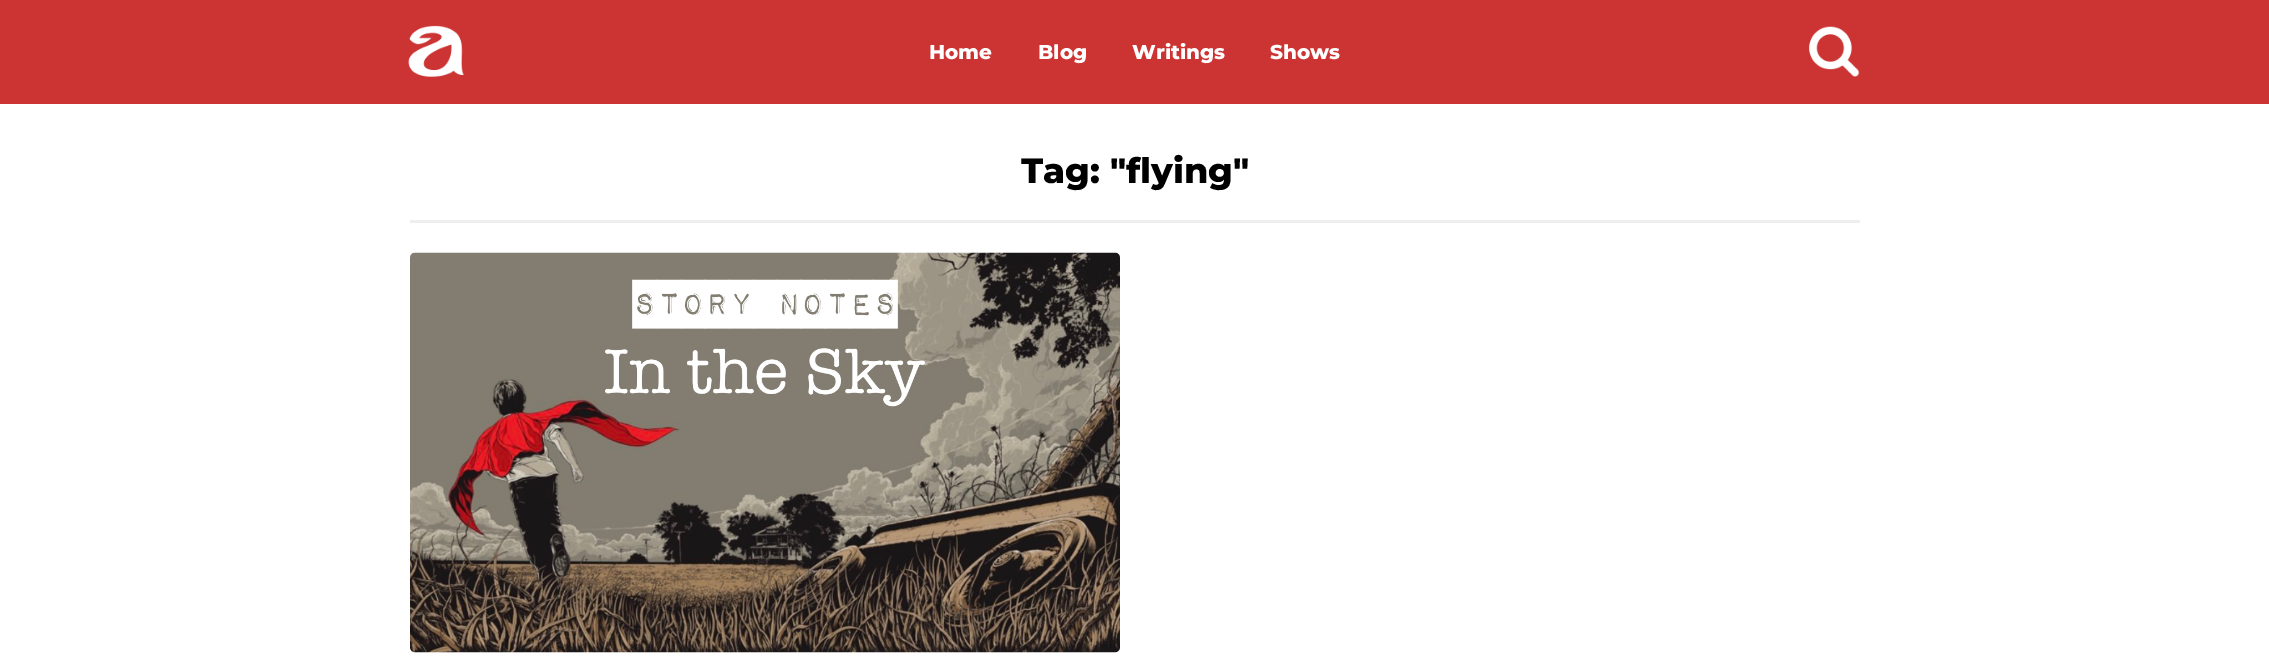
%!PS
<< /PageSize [2269 667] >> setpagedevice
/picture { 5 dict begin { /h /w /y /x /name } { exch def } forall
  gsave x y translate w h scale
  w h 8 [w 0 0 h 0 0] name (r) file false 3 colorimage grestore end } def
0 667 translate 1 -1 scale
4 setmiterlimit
1 setgray
0 0 2269 667 rectfill
0.8 0.2 0.2 setrgbcolor
0 0 2269 104 rectfill
(img1.rgb) 408 25 56 52 picture
/Montserrat-ExtraBold [20 0 0 -20 0 0] selectfont
1 setgray
929 59 moveto (Home) show
1038 59 moveto (Blog) show
1132 59 moveto (Writings) show
1270 59 moveto (Shows) show
(img2.rgb) 1809 26 51 51 picture
0.933 setgray
410 220 1450 3 rectfill
/Montserrat-ExtraBold [35 0 0 -35 0 0] selectfont
0 setgray
1021 183 moveto (Tag: "flying") show
(img3.rgb) 410 252 710 401 picture
showpage
